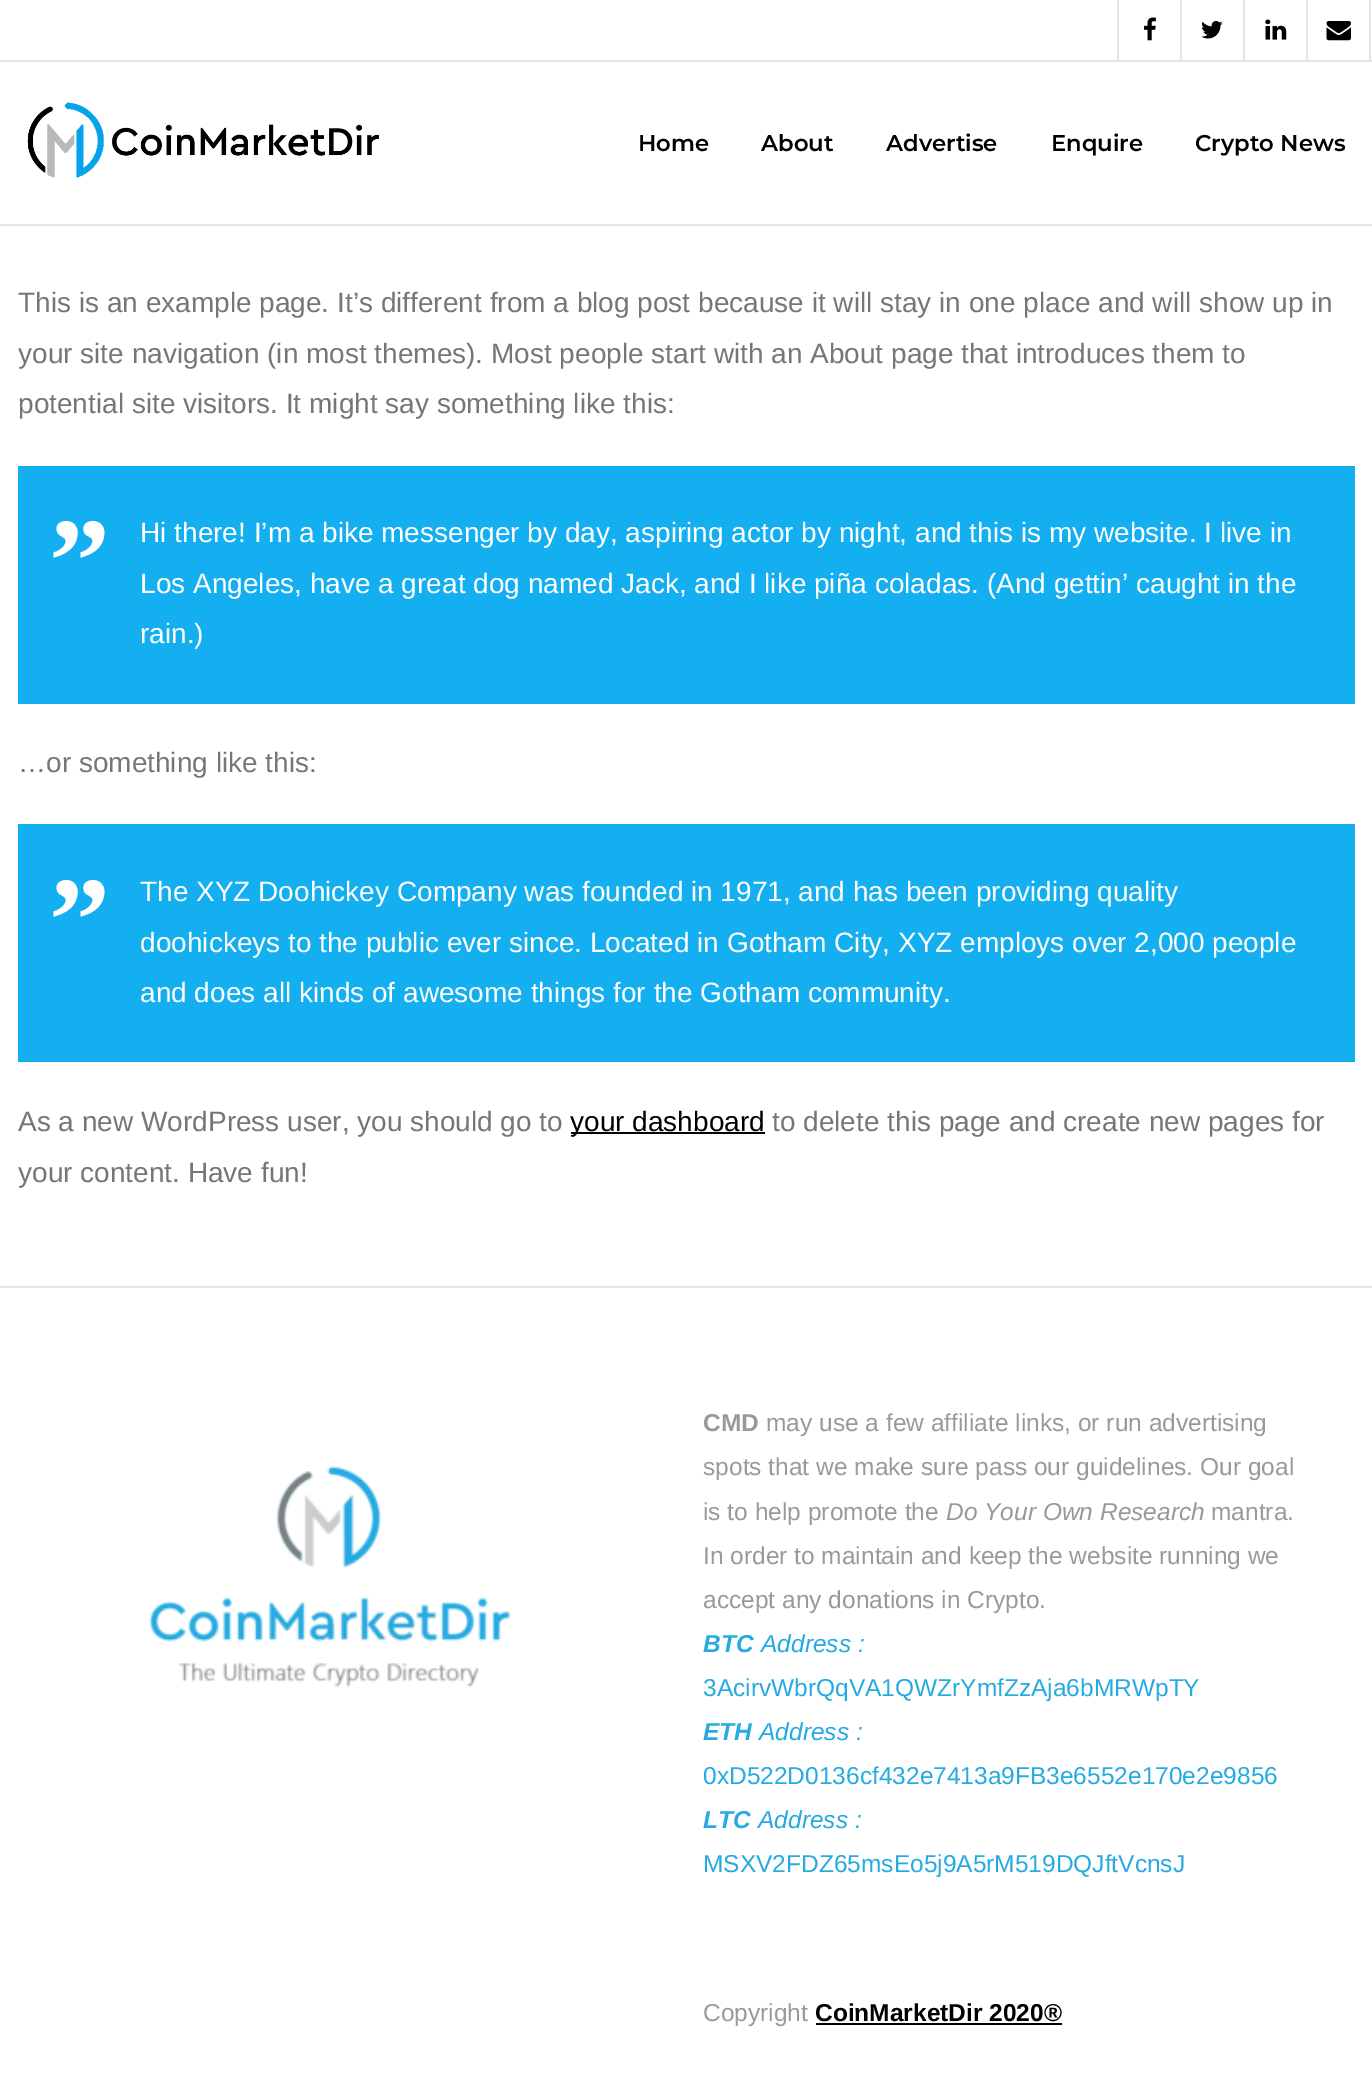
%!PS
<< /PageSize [1372 2092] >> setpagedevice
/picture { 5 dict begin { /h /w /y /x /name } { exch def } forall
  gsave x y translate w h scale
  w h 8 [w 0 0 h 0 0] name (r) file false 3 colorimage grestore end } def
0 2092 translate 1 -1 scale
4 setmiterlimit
1 setgray
0 0 1372 2092 rectfill
0.898 setgray
0 60 1372 2 rectfill
1117 0 2 60 rectfill
(img1.rgb) 1144 17 12 24 picture
1180 0 2 60 rectfill
(img2.rgb) 1201 21 22 18 picture
1243 0 2 60 rectfill
(img3.rgb) 1265 19 22 21 picture
1369 0 2 60 rectfill
1306 0 2 60 rectfill
(img4.rgb) 1326 21 25 20 picture
0 224 1372 2 rectfill
(img5.rgb) 27 102 352 76 picture
/Montserrat-SemiBold [22.75 0 0 -22.75 0 0] selectfont
0 setgray
638 151 moveto (Home) show
761 151 moveto (About) show
886 151 moveto (Advertise) show
1051 151 moveto (Enquire) show
1195 151 moveto (Crypto News) show
/LiberationSans-Regular [28 0 0 -28 0 0] selectfont
0.463 setgray
18 312 moveto (This is an example page. It’s different from a blog post because it will stay in one place and will show up in) show
18 363 moveto (your site navigation \(in most themes\). Most people start with an About page that introduces them to) show
18 413 moveto (potential site visitors. It might say something like this:) show
0.075 0.686 0.941 setrgbcolor
18 466 1337 238 rectfill
/LiberationSerif-Bold [122 0 0 -122 0 0] selectfont
1 setgray
49 602 moveto (”) show
/LiberationSans-Regular [28 0 0 -28 0 0] selectfont
140 542 moveto (Hi there! I’m a bike messenger by day, aspiring actor by night, and this is my website. I live in) show
140 593 moveto (Los Angeles, have a great dog named Jack, and I like piña coladas. \(And gettin’ caught in the) show
140 643 moveto (rain.\)) show
0.463 setgray
18 772 moveto (…or something like this:) show
0.075 0.686 0.941 setrgbcolor
18 824 1337 238 rectfill
/LiberationSerif-Bold [122 0 0 -122 0 0] selectfont
1 setgray
49 961 moveto (”) show
/LiberationSans-Regular [28 0 0 -28 0 0] selectfont
140 901 moveto (The XYZ Doohickey Company was founded in 1971, and has been providing quality) show
140 952 moveto (doohickeys to the public ever since. Located in Gotham City, XYZ employs over 2,000 people) show
140 1002 moveto (and does all kinds of awesome things for the Gotham community.) show
0.463 setgray
18 1131 moveto (As a new WordPress user, you should go to) show
0 setgray
571 1132 194 2 rectfill
570 1131 moveto (your dashboard) show
0.463 setgray
772 1131 moveto (to delete this page and create new pages for) show
18 1182 moveto (your content. Have fun!) show
0.898 setgray
0 1286 1372 2 rectfill
(img6.rgb) 149 1465 362 223 picture
/LiberationSans-Bold [24.5 0 0 -24.5 0 0] selectfont
0.6 setgray
703 1431 moveto (CMD) show
/LiberationSans-Regular [24.5 0 0 -24.5 0 0] selectfont
766 1431 moveto (may use a few affiliate links, or run advertising) show
703 1475 moveto (spots that we make sure pass our guidelines. Our goal) show
703 1520 moveto (is to help promote the) show
/LiberationSans-Italic [24.5 0 0 -24.5 0 0] selectfont
946 1520 moveto (Do Your Own Research) show
/LiberationSans-Regular [24.5 0 0 -24.5 0 0] selectfont
1211 1520 moveto (mantra.) show
703 1564 moveto (In order to maintain and keep the website running we) show
703 1608 moveto (accept any donations in Crypto.) show
/LiberationSans-BoldItalic [24.5 0 0 -24.5 0 0] selectfont
0.145 0.667 0.882 setrgbcolor
703 1652 moveto (BTC) show
/LiberationSans-Italic [24.5 0 0 -24.5 0 0] selectfont
761 1652 moveto (Address :) show
/LiberationSans-Regular [24.5 0 0 -24.5 0 0] selectfont
703 1696 moveto (3AcirvWbrQqVA1QWZrYmfZzAja6bMRWpTY) show
/LiberationSans-BoldItalic [24.5 0 0 -24.5 0 0] selectfont
703 1740 moveto (ETH) show
/LiberationSans-Italic [24.5 0 0 -24.5 0 0] selectfont
759 1740 moveto (Address :) show
/LiberationSans-Regular [24.5 0 0 -24.5 0 0] selectfont
703 1784 moveto (0xD522D0136cf432e7413a9FB3e6552e170e2e9856) show
/LiberationSans-BoldItalic [24.5 0 0 -24.5 0 0] selectfont
703 1828 moveto (LTC) show
/LiberationSans-Italic [24.5 0 0 -24.5 0 0] selectfont
758 1828 moveto (Address :) show
/LiberationSans-Regular [24.5 0 0 -24.5 0 0] selectfont
703 1872 moveto (MSXV2FDZ65msEo5j9A5rM519DQJftVcnsJ) show
0.6 setgray
703 2021 moveto (Copyright) show
/LiberationSans-Bold [24.5 0 0 -24.5 0 0] selectfont
0 setgray
815 2021 moveto (CoinMarketDir 2020®) show
816 2023 246 2 rectfill
showpage
